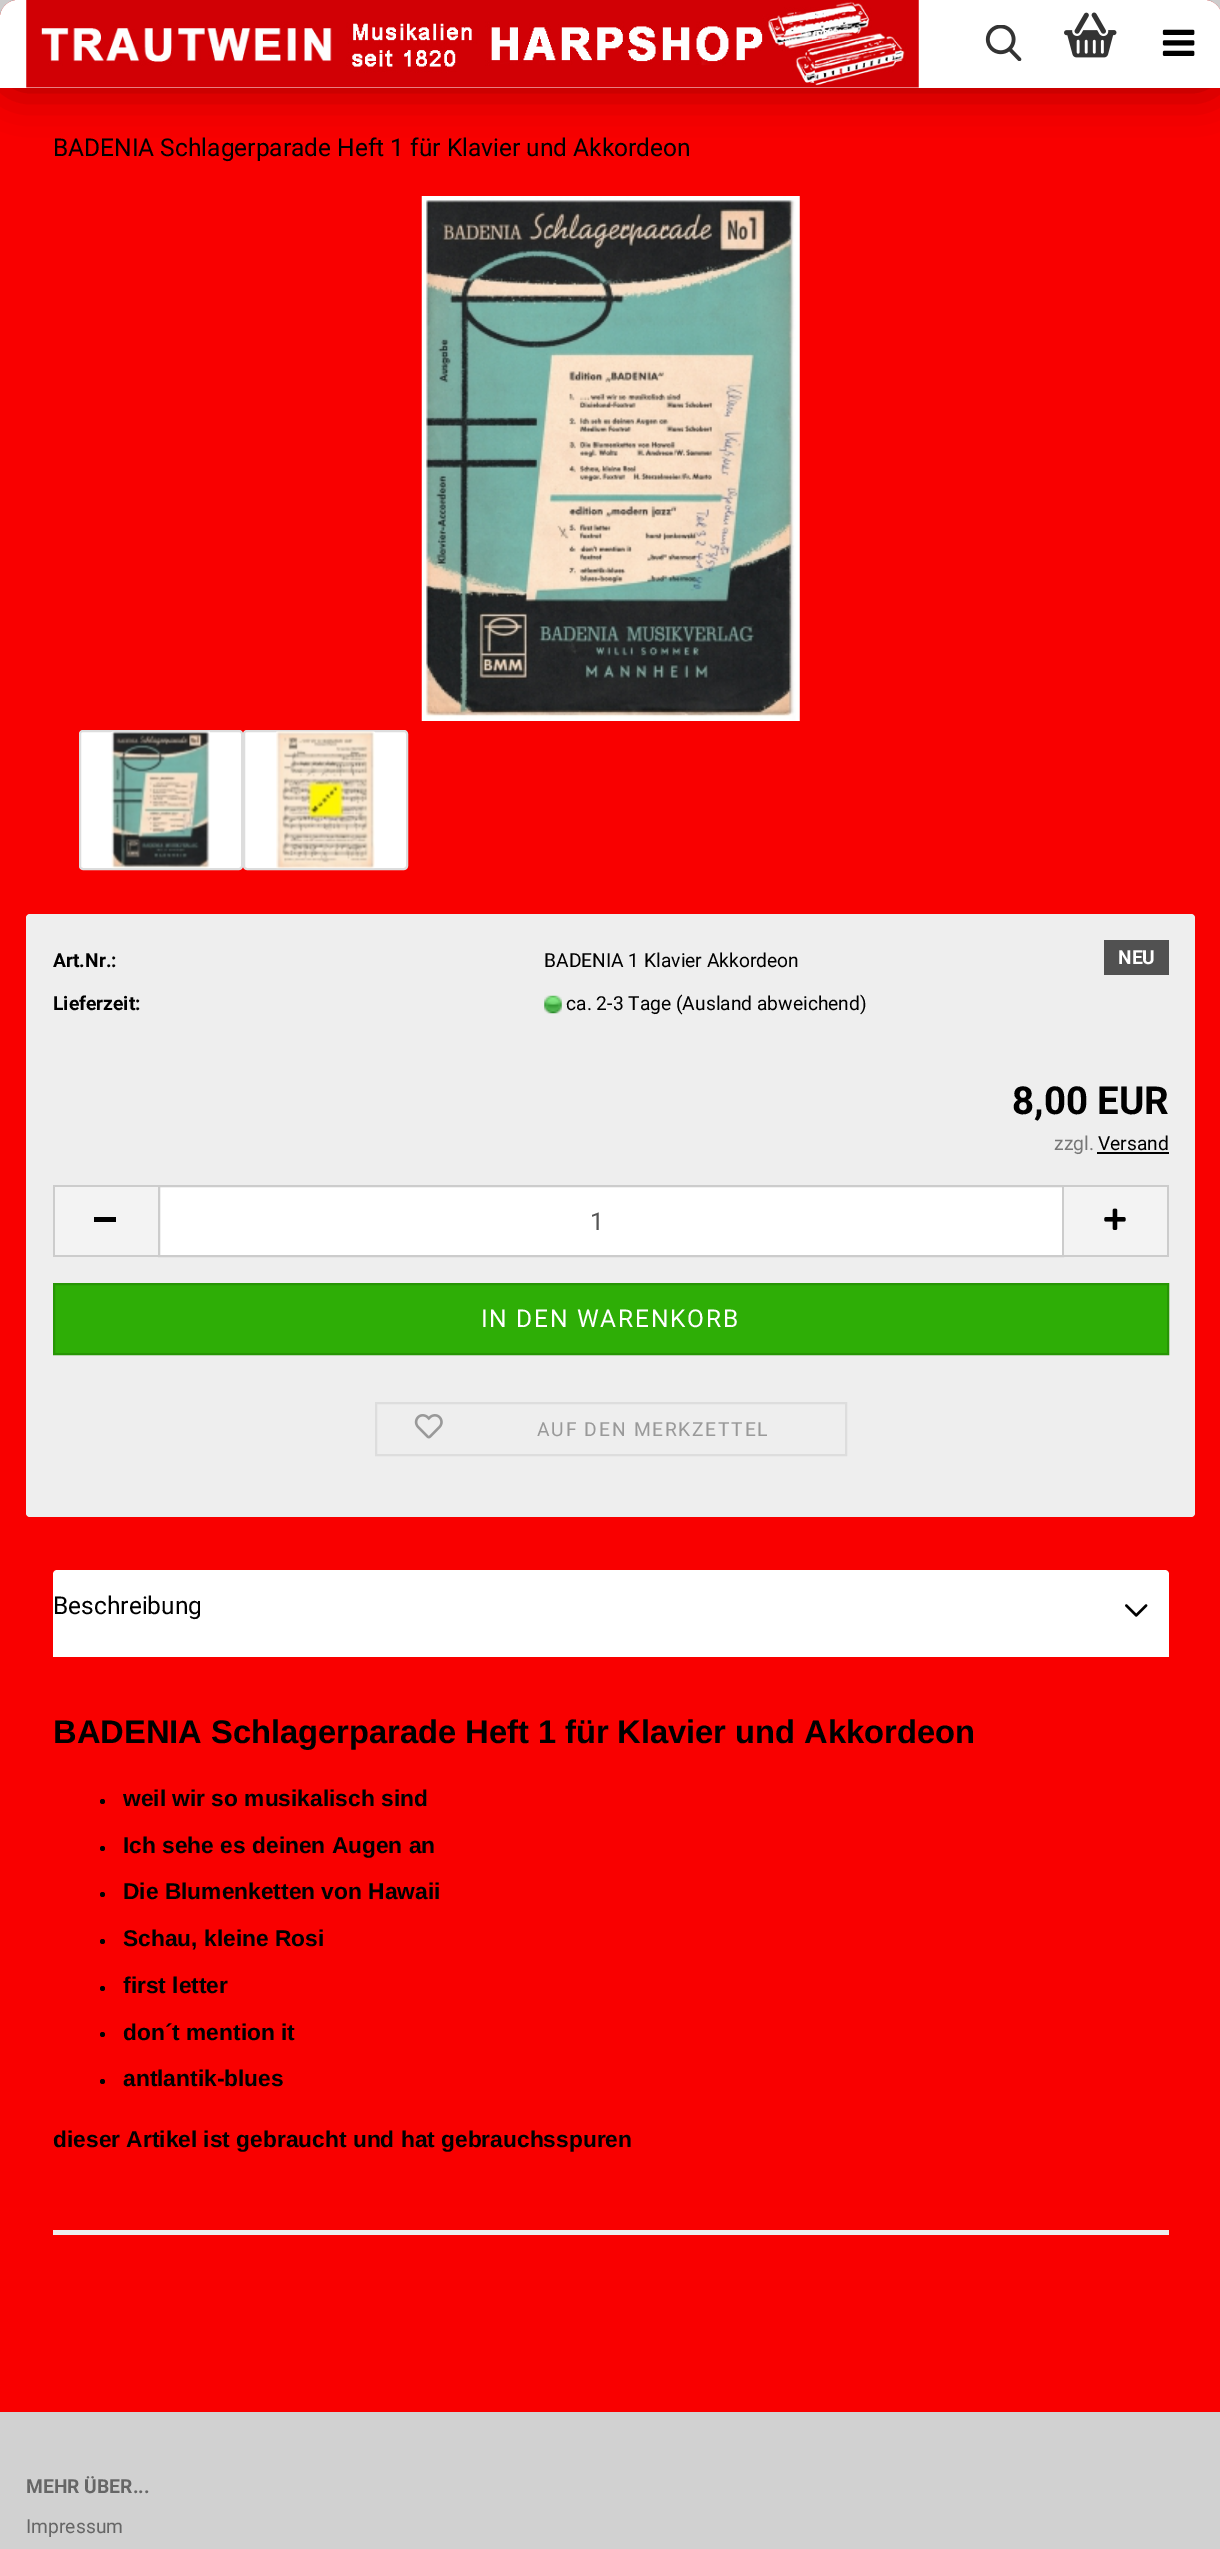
%!PS
<< /PageSize [1220 2549] /PageUsesTransparency true >> setpagedevice
/alpha { dup .setfillconstantalpha .setstrokeconstantalpha } def
/roundrect { 5 dict begin { /r /h /w /y /x } { exch def } forall
  x r add y moveto x w add y 2 copy h add r arct x w add y h add x 1 index r arct
  x y h add x y r arct x y 2 copy exch w add exch r arct closepath end } def
/shadow { 12 dict begin { /a /b /q /h /w /y /x } { exch def } forall gsave /was 0 def
  9 -2 -9 { dup b mul 4 div /e exch def 1 sub .425 mul 2.718 exch exp 1 add a .99 .min exch div /now exch def
    1 1 now sub 1 was sub div sub alpha /was now def
    w h .min e 2 mul add 0 gt { x e sub y e sub w e 2 mul add h e 2 mul add
      q e add b .6 mul add w h .min 2 div e add .min 0 .max roundrect fill } if } for grestore end } def
/picture { 5 dict begin { /h /w /y /x /name } { exch def } forall
  gsave x y translate w h scale
  w h 8 [w 0 0 h 0 0] name (r) file false 3 colorimage grestore end } def
0 .pushpdf14devicefilter
0 2549 translate 1 -1 scale
4 setmiterlimit
0.906 setgray
0 0 1220 2549 rectfill
0.976 0 0 setrgbcolor
0 0 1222 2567 18 roundrect fill
0 setgray
0 0 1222 88 18 22 0.35 shadow
1 setgray
newpath 18 0 moveto 1204 0 lineto 1214 0 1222 8 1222 18 curveto 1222 88 lineto 0 88 lineto 0 18 lineto 0 8 8 0 18 0 curveto closepath fill
(img1.rgb) 26 0 893 88 picture
(img2.rgb) 985 25 37 36 picture
(img3.rgb) 1064 12 53 46 picture
(img4.rgb) 1162 29 33 27 picture
/Roboto-Regular [24.5 0 0 -24.5 0 0] selectfont
0 setgray
53 156 moveto (BADENIA Schlagerparade Heft 1 für Klavier und Akkordeon) show
(img5.rgb) 421 196 379 525 picture
1 setgray
80 731 162 138 3 roundrect gsave fill grestore
0.867 setgray
2 setlinewidth
stroke
(img6.rgb) 111 731 99 138 picture
1 setgray
244 731 163 138 3 roundrect gsave fill grestore
0.867 setgray
stroke
(img7.rgb) 276 731 99 138 picture
0.933 setgray
26 914 1169 603 4 roundrect fill
0.318 setgray
1104 940 65 35 rectfill
/Roboto-Bold [19.25 0 0 -19.25 0 0] selectfont
1 setgray
1118 964 moveto (NEU) show
0 setgray
53 967 moveto (Art.Nr.:) show
/Roboto-Regular [19.25 0 0 -19.25 0 0] selectfont
544 967 moveto (BADENIA 1 Klavier Akkordeon) show
/Roboto-Bold [19.25 0 0 -19.25 0 0] selectfont
53 1010 moveto (Lieferzeit:) show
(img8.rgb) 544 995 18 19 picture
/Roboto-Regular [19.25 0 0 -19.25 0 0] selectfont
566 1010 moveto (ca. 2-3 Tage \(Ausland abweichend\)) show
/Roboto-Bold [38.5 0 0 -38.5 0 0] selectfont
1012 1114 moveto (8,00 EUR) show
/Roboto-Regular [19.25 0 0 -19.25 0 0] selectfont
0.467 setgray
1054 1150 moveto (zzgl.) show
0 setgray
1098 1150 moveto (Versand) show
1097 1152 72 2 rectfill
0.953 setgray
55 1187 103 68 rectfill
0.8 setgray
53 1185 105 2 rectfill
53 1255 105 2 rectfill
53 1185 2 72 rectfill
0 setgray
94 1217 22 5 rectfill
1 setgray
newpath 159 1186 moveto 1063 1186 lineto 1063 1256 lineto 159 1256 lineto closepath gsave fill grestore
0.8 setgray
stroke
/Roboto-Regular [24.5 0 0 -24.5 0 0] selectfont
0.333 setgray
590 1230 moveto (1) show
0.953 setgray
1064 1187 103 68 rectfill
0.8 setgray
1064 1185 105 2 rectfill
1167 1185 2 72 rectfill
1064 1255 105 2 rectfill
(img9.rgb) 1104 1208 22 22 picture
0.18 0.682 0.024 setrgbcolor
newpath 54 1284 moveto 1168 1284 lineto 1168 1354 lineto 54 1354 lineto closepath gsave fill grestore
0.153 0.584 0.02 setrgbcolor
stroke
1 setgray
481 1327 moveto 1.75 0 (IN DEN WARENKORB) ashow
0.867 setgray
376 1403 470 52 rectstroke
(img10.rgb) 414 1414 29 25 picture
/Roboto-Regular [19.25 0 0 -19.25 0 0] selectfont
0.6 setgray
537 1436 moveto 1.75 0 (AUF DEN MERKZETTEL) ashow
1 setgray
newpath 57 1570 moveto 1165 1570 lineto 1167 1570 1169 1572 1169 1574 curveto 1169 1657 lineto 53 1657 lineto 53 1574 lineto 53 1572 55 1570 57 1570 curveto closepath fill
/Roboto-Regular [24.5 0 0 -24.5 0 0] selectfont
0 setgray
53 1614 moveto (Beschreibung) show
(img11.rgb) 1125 1604 23 13 picture
0.933 setgray
53 2230 1116 5 rectfill
/LiberationSans-Bold [32.7 0 0 -32.7 0 0] selectfont
0 setgray
53 1743 moveto (BADENIA Schlagerparade Heft 1 für) show
617 1743 moveto (Klavier und Akkordeon) show
newpath 102.5 1801.5 2.5 0 360 arc closepath fill
/LiberationSans-Bold [22.75 0 0 -22.75 0 0] selectfont
123 1806 moveto (weil wir so musikalisch sind) show
newpath 102.5 1848.5 2.5 0 360 arc closepath fill
123 1853 moveto (Ich sehe es deinen Augen an) show
newpath 102.5 1894.5 2.5 0 360 arc closepath fill
123 1899 moveto (Die Blumenketten von Hawaii) show
newpath 102.5 1941.5 2.5 0 360 arc closepath fill
123 1946 moveto (Schau, kleine Rosi) show
newpath 102.5 1988.5 2.5 0 360 arc closepath fill
123 1993 moveto (first letter) show
newpath 102.5 2034.5 2.5 0 360 arc closepath fill
123 2040 moveto (don´t mention it) show
newpath 102.5 2081.5 2.5 0 360 arc closepath fill
123 2086 moveto (antlantik-blues) show
53 2147 moveto (dieser Artikel ist gebraucht und hat gebrauchsspuren) show
0.82 setgray
0 2412 1220 137 rectfill
/Roboto-Bold [19.25 0 0 -19.25 0 0] selectfont
0.4 setgray
26 2493 moveto (MEHR ÜBER...) show
/Roboto-Regular [19.25 0 0 -19.25 0 0] selectfont
26 2533 moveto (Impressum) show
.poppdf14devicefilter showpage
